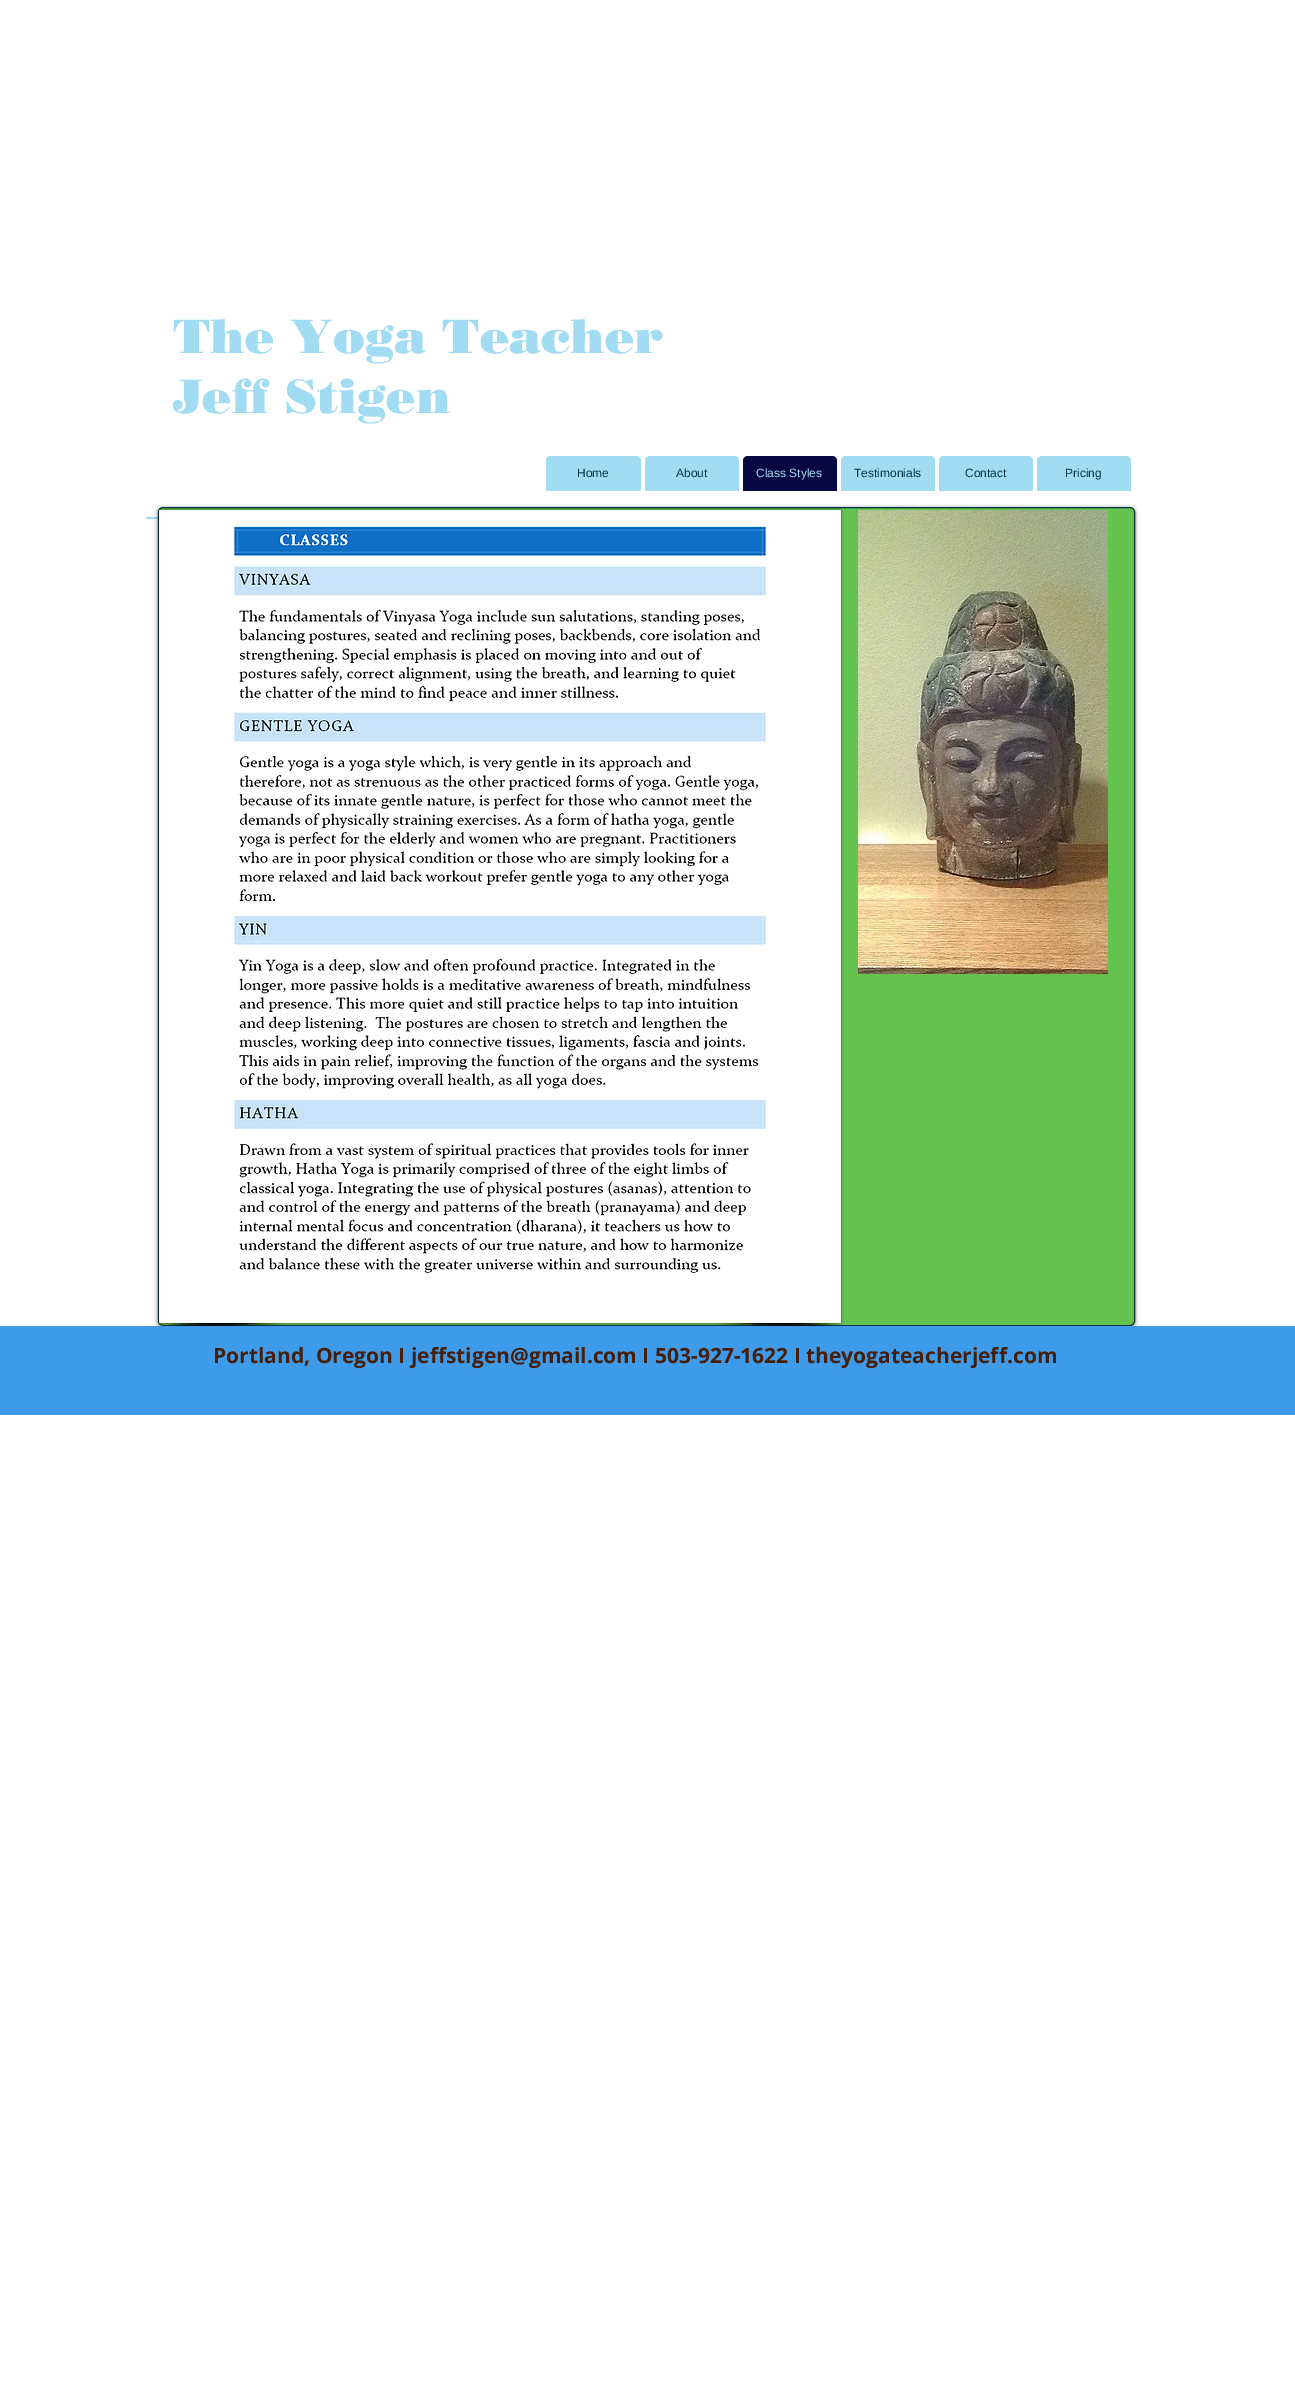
%!PS
<< /PageSize [1295 2403] /PageUsesTransparency true >> setpagedevice
/alpha { dup .setfillconstantalpha .setstrokeconstantalpha } def
/roundrect { 5 dict begin { /r /h /w /y /x } { exch def } forall
  x r add y moveto x w add y 2 copy h add r arct x w add y h add x 1 index r arct
  x y h add x y r arct x y 2 copy exch w add exch r arct closepath end } def
/shadow { 12 dict begin { /a /b /q /h /w /y /x } { exch def } forall gsave /was 0 def
  9 -2 -9 { dup b mul 4 div /e exch def 1 sub .425 mul 2.718 exch exp 1 add a .99 .min exch div /now exch def
    1 1 now sub 1 was sub div sub alpha /was now def
    w h .min e 2 mul add 0 gt { x e sub y e sub w e 2 mul add h e 2 mul add
      q e add b .6 mul add w h .min 2 div e add .min 0 .max roundrect fill } if } for grestore end } def
/picture { 5 dict begin { /h /w /y /x /name } { exch def } forall
  gsave x y translate w h scale
  w h 8 [w 0 0 h 0 0] name (r) file false 3 colorimage grestore end } def
0 .pushpdf14devicefilter
0 2403 translate 1 -1 scale
4 setmiterlimit
1 setgray
0 0 1295 2403 rectfill
/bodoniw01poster-Black [48 0 0 -48 0 0] selectfont
0.631 0.863 0.949 setrgbcolor
173 353 moveto (The Yoga Teacher) show
173 413 moveto (Jeff Stigen) show
newpath 551 456 moveto 636 456 lineto 639 456 641 458 641 461 curveto 641 491 lineto 546 491 lineto 546 461 lineto 546 458 548 456 551 456 curveto closepath fill
/LiberationSans-Regular [12 0 0 -12 0 0] selectfont
0 0.204 0.282 setrgbcolor
577 477 moveto (Home) show
0.631 0.863 0.949 setrgbcolor
newpath 650 456 moveto 734 456 lineto 737 456 739 458 739 461 curveto 739 491 lineto 645 491 lineto 645 461 lineto 645 458 647 456 650 456 curveto closepath fill
0 0.204 0.282 setrgbcolor
676 477 moveto (About) show
0.035 0.027 0.259 setrgbcolor
newpath 748 456 moveto 832 456 lineto 835 456 837 458 837 461 curveto 837 491 lineto 743 491 lineto 743 461 lineto 743 458 745 456 748 456 curveto closepath fill
0.631 0.863 0.949 setrgbcolor
756 477 moveto (Class Styles) show
newpath 846 456 moveto 930 456 lineto 933 456 935 458 935 461 curveto 935 491 lineto 841 491 lineto 841 461 lineto 841 458 843 456 846 456 curveto closepath fill
0 0.204 0.282 setrgbcolor
854 477 moveto (Testimonials) show
0.631 0.863 0.949 setrgbcolor
newpath 944 456 moveto 1028 456 lineto 1031 456 1033 458 1033 461 curveto 1033 491 lineto 939 491 lineto 939 461 lineto 939 458 941 456 944 456 curveto closepath fill
0 0.204 0.282 setrgbcolor
965 477 moveto (Contact) show
0.631 0.863 0.949 setrgbcolor
newpath 1042 456 moveto 1126 456 lineto 1129 456 1131 458 1131 461 curveto 1131 491 lineto 1037 491 lineto 1037 461 lineto 1037 458 1039 456 1042 456 curveto closepath fill
0 0.204 0.282 setrgbcolor
1065 477 moveto (Pricing) show
0.631 0.863 0.949 setrgbcolor
146 517 12 2 rectfill
0 setgray
158 508 977 819 5 2 0.6 shadow
0.392 0.765 0.306 setrgbcolor
158.5 507.5 976 818 4.5 roundrect gsave fill grestore
0 0.204 0.282 setrgbcolor
stroke
0 setgray
159 510 682 813 0 1.5 0.5 shadow
(img1.rgb) 159 510 682 813 picture
(img2.rgb) 156 1323 143 3 picture
(img3.rgb) 701 1323 143 3 picture
(img4.rgb) 858 510 250 464 picture
0.239 0.608 0.914 setrgbcolor
0 1326 1295 89 rectfill
/OpenSans-Bold [21 0 0 -21 0 0] selectfont
0.275 0.118 0.035 setrgbcolor
213 1363 moveto (Portland, Oregon I jeffstigen@gmail.com I 503-927-1622 I theyogateacherjeff.com) show
.poppdf14devicefilter showpage
